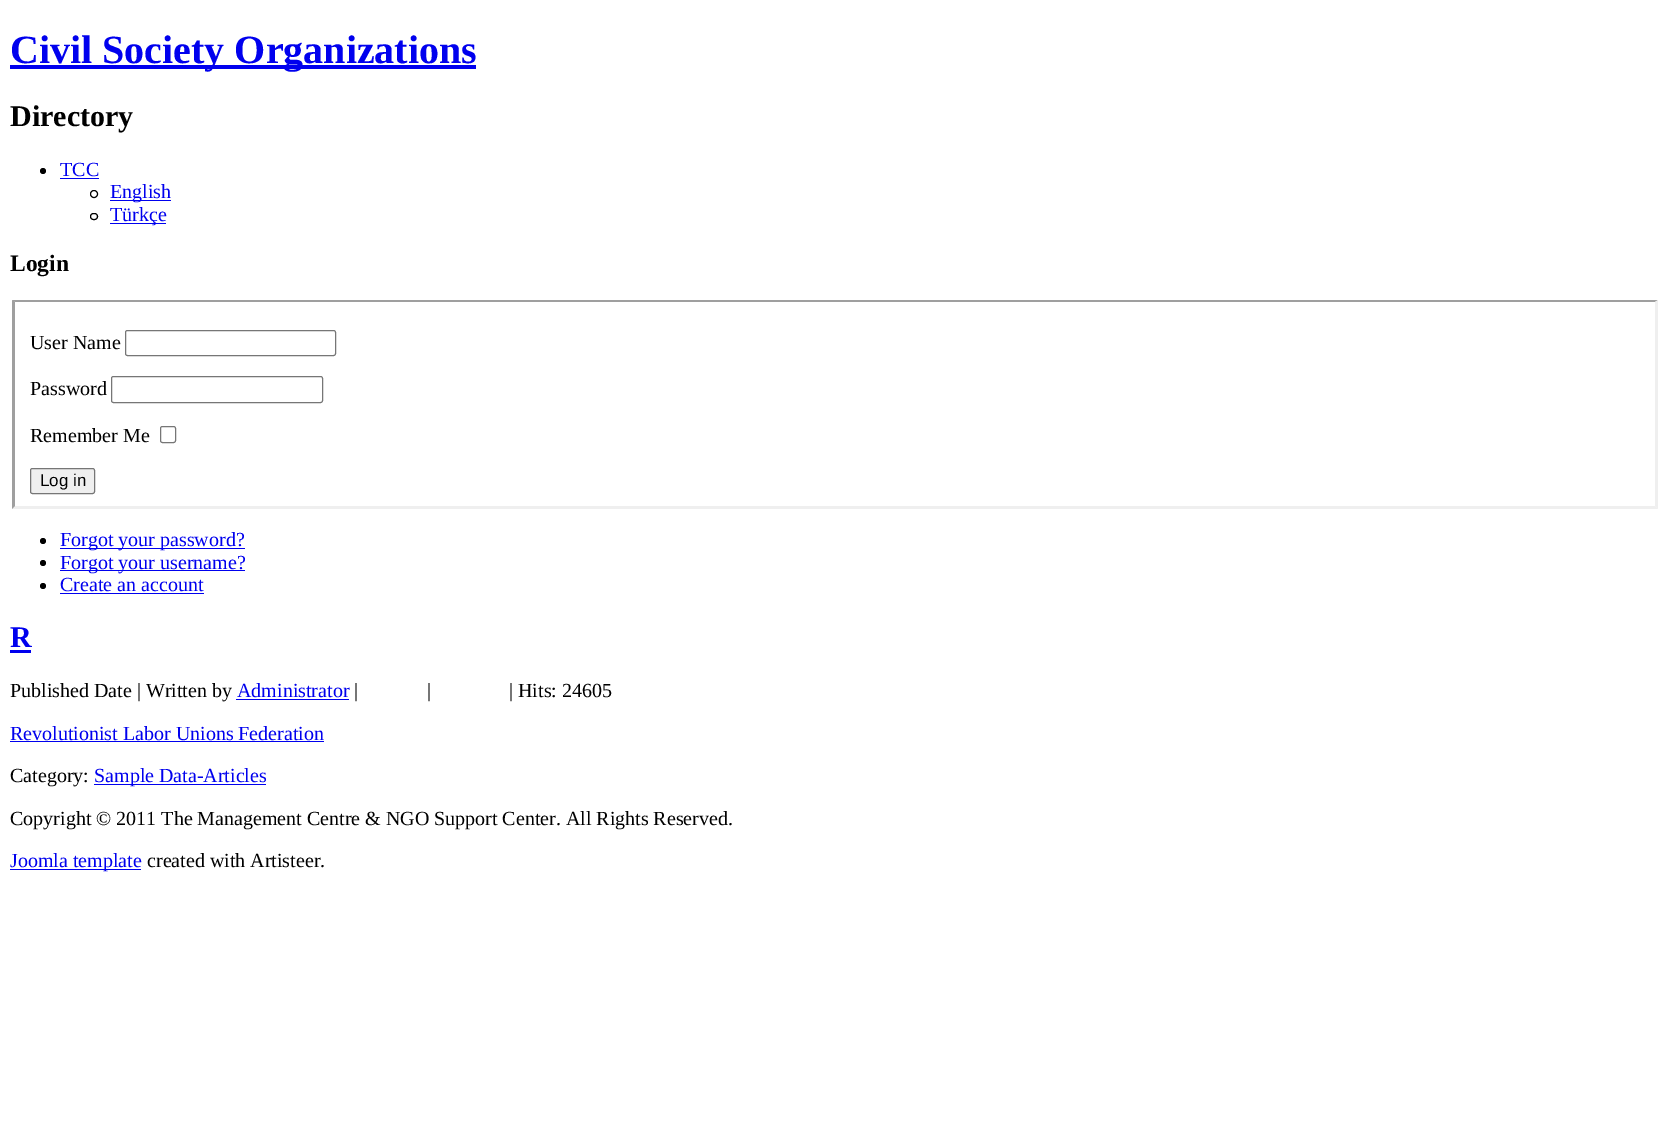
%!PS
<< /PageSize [1670 1135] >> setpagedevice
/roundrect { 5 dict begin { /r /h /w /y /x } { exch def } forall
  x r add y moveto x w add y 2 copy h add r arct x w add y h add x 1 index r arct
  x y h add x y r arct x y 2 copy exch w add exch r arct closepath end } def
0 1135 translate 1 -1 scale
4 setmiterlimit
1 setgray
0 0 1670 1135 rectfill
0 0 0.933 setrgbcolor
10 65 466 4 rectfill
/LiberationSerif-Bold [40 0 0 -40 0 0] selectfont
10 63 moveto (Civil Society Organizations) show
/LiberationSerif-Bold [30 0 0 -30 0 0] selectfont
0 setgray
10 126 moveto (Directory) show
newpath 43 171 3 0 360 arc closepath fill
/LiberationSerif-Regular [20 0 0 -20 0 0] selectfont
0 0 0.933 setrgbcolor
60 176 moveto (TCC) show
60 178 39 1 rectfill
0 setgray
newpath 94 194 3.5 0 360 arc closepath stroke
0 0 0.933 setrgbcolor
110 200 61 1 rectfill
110 198 moveto (English) show
0 setgray
90.5 213.5 7 6 3 roundrect stroke
0 0 0.933 setrgbcolor
110 223 56 1 rectfill
110 221 moveto (Türkçe) show
/LiberationSerif-Bold [23.5 0 0 -23.5 0 0] selectfont
0 setgray
10 271 moveto (Login) show
0.624 setgray
newpath 12 300 moveto 1658 300 lineto 1655 302 lineto 15 302 lineto closepath fill
0.937 setgray
newpath 1658 300 moveto 1658 509 lineto 1655 506 lineto 1655 302 lineto closepath fill
newpath 1658 509 moveto 12 509 lineto 15 506 lineto 1655 506 lineto closepath fill
0.624 setgray
newpath 12 509 moveto 12 300 lineto 15 302 lineto 15 506 lineto closepath fill
/LiberationSerif-Regular [20 0 0 -20 0 0] selectfont
0 setgray
30 349 moveto (User Name) show
0.463 setgray
125.5 330.5 210 25 2 roundrect stroke
0 setgray
30 395 moveto (Password) show
0.463 setgray
111.5 376.5 211 26 2 roundrect stroke
0 setgray
30 442 moveto (Remember Me) show
0.463 setgray
160.5 426.5 15 16 2 roundrect stroke
0.937 setgray
30.5 468.5 64 25 2 roundrect gsave fill grestore
0.463 setgray
stroke
/LiberationSans-Regular [17 0 0 -17 0 0] selectfont
0 setgray
40 486 moveto (Log in) show
newpath 43 541 3 0 360 arc closepath fill
0 0 0.933 setrgbcolor
60 548 185 1 rectfill
/LiberationSerif-Regular [20 0 0 -20 0 0] selectfont
60 546 moveto (Forgot your password?) show
0 setgray
newpath 43 563 3 0 360 arc closepath fill
0 0 0.933 setrgbcolor
60 570 185 1 rectfill
60 569 moveto (Forgot your username?) show
0 setgray
newpath 43 586 3 0 360 arc closepath fill
0 0 0.933 setrgbcolor
60 591 moveto (Create an account) show
60 593 144 1 rectfill
/LiberationSerif-Bold [30 0 0 -30 0 0] selectfont
10 647 moveto (R) show
10 650 21 3 rectfill
/LiberationSerif-Regular [20 0 0 -20 0 0] selectfont
0 setgray
10 697 moveto (Published Date | Written by) show
0 0 0.933 setrgbcolor
237 697 moveto (Administrator) show
236 699 113 1 rectfill
0 setgray
354 697 moveto (|) show
427 697 moveto (|) show
509 697 moveto (| Hits: 24605) show
0 0 0.933 setrgbcolor
10 740 moveto (Revolutionist Labor Unions Federation) show
10 741 314 1 rectfill
0 setgray
10 782 moveto (Category:) show
0 0 0.933 setrgbcolor
94 784 172 1 rectfill
94 782 moveto (Sample Data-Articles) show
0 setgray
10 825 moveto (Copyright © 2011 The Management Centre & NGO Support Center. All Rights Reserved.) show
0 0 0.933 setrgbcolor
10 869 131 1 rectfill
10 867 moveto (Joomla template) show
0 setgray
147 867 moveto (created with Artisteer.) show
showpage
